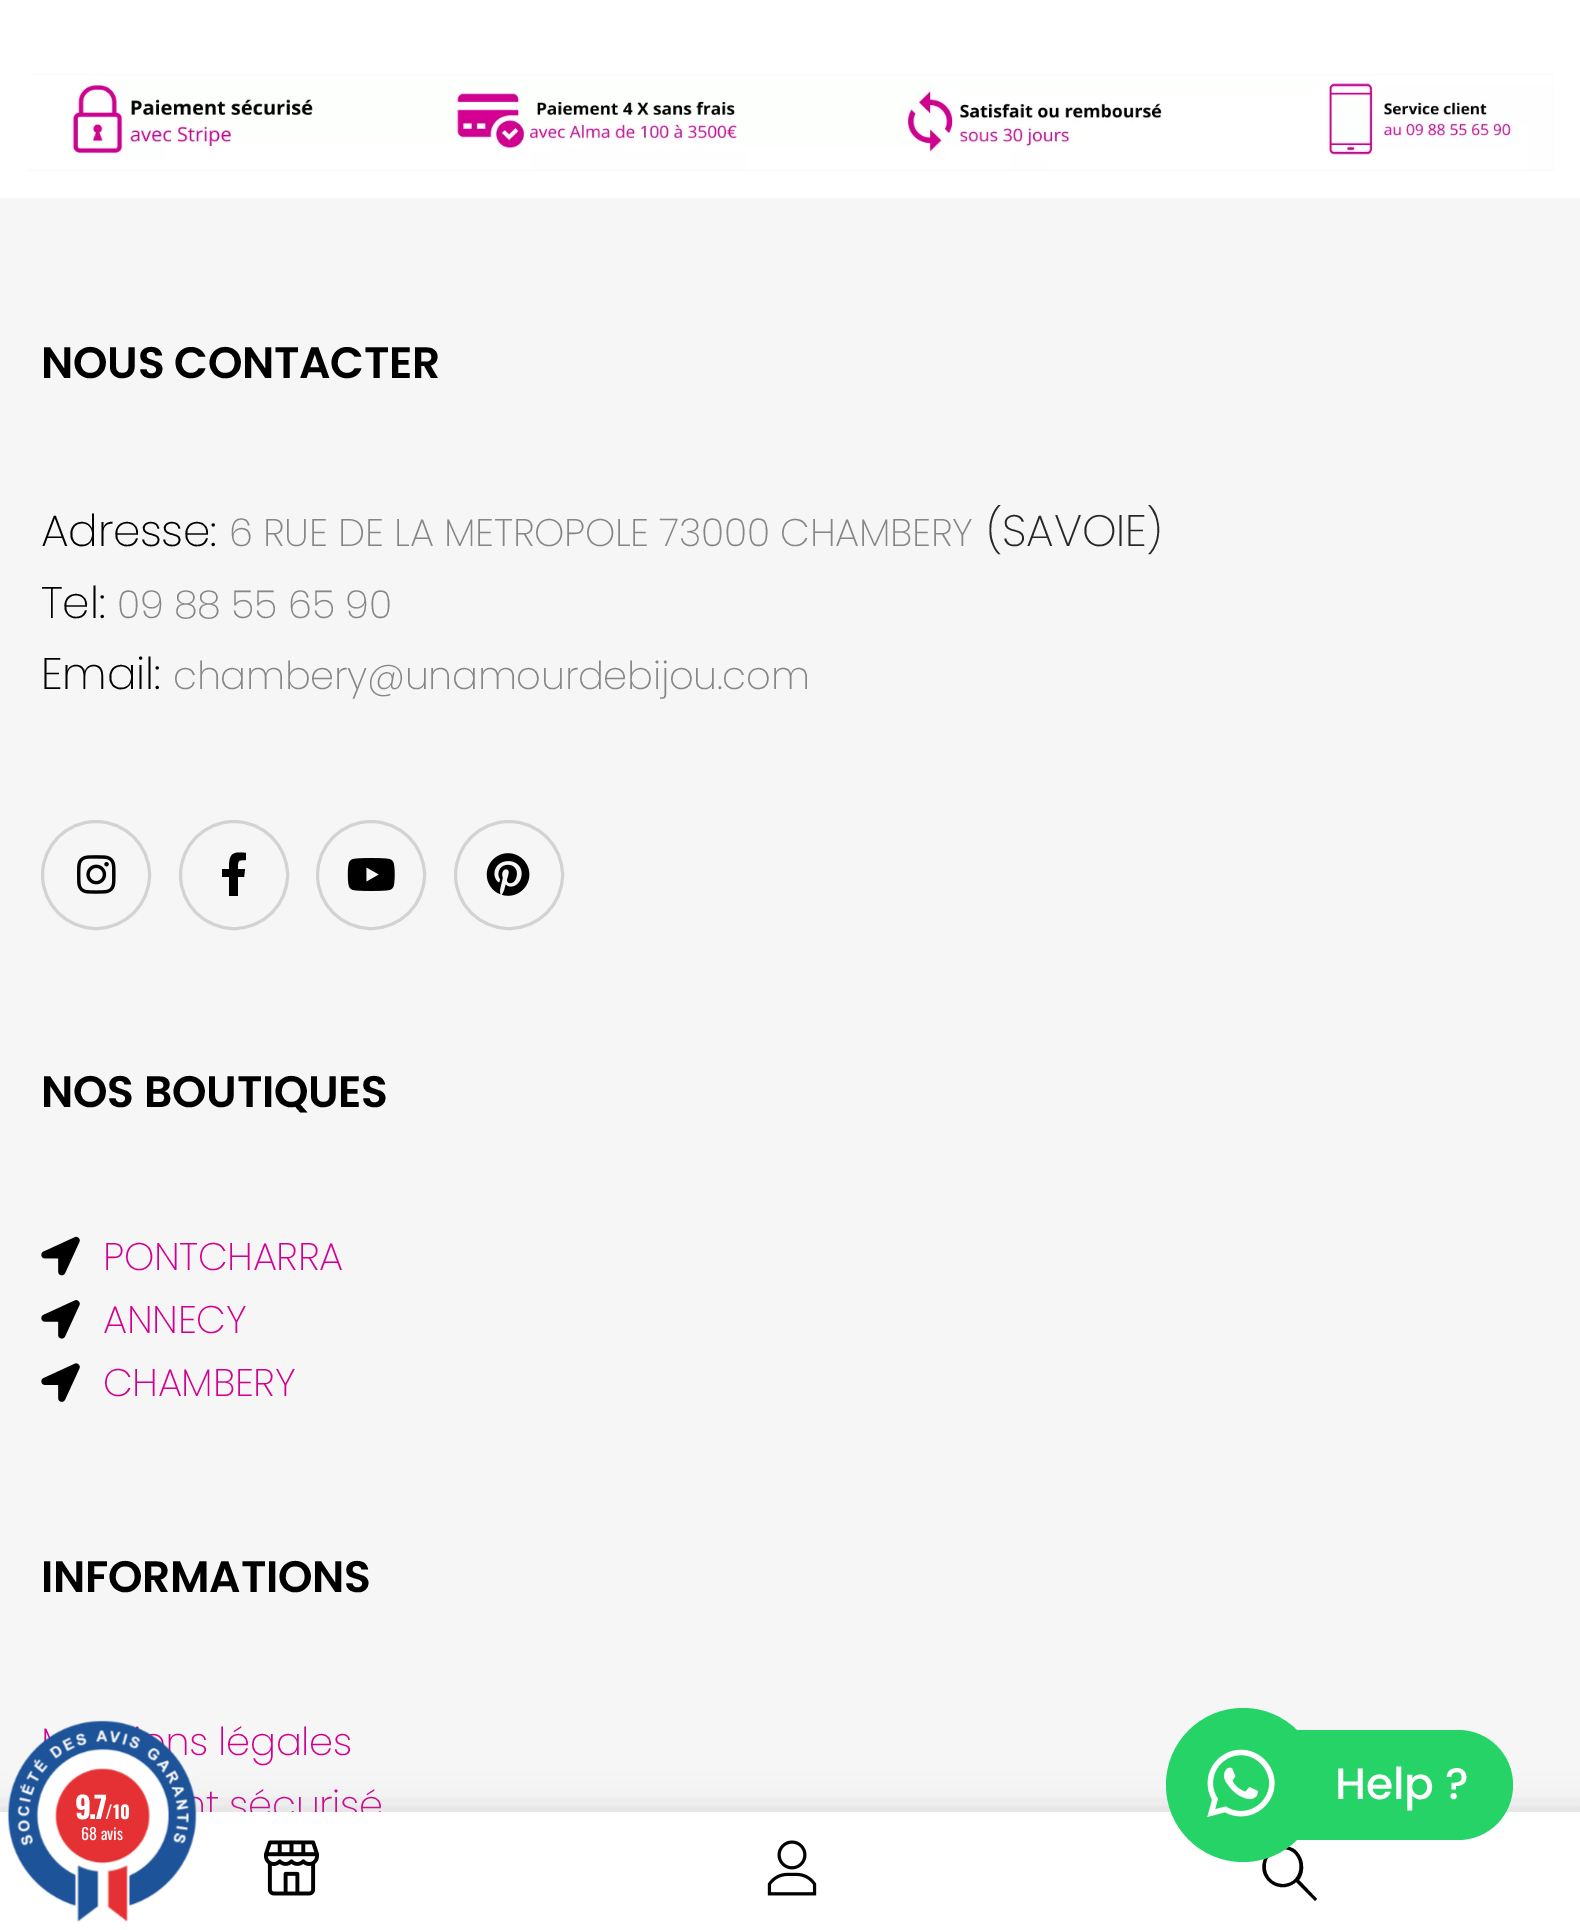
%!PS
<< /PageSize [1580 1930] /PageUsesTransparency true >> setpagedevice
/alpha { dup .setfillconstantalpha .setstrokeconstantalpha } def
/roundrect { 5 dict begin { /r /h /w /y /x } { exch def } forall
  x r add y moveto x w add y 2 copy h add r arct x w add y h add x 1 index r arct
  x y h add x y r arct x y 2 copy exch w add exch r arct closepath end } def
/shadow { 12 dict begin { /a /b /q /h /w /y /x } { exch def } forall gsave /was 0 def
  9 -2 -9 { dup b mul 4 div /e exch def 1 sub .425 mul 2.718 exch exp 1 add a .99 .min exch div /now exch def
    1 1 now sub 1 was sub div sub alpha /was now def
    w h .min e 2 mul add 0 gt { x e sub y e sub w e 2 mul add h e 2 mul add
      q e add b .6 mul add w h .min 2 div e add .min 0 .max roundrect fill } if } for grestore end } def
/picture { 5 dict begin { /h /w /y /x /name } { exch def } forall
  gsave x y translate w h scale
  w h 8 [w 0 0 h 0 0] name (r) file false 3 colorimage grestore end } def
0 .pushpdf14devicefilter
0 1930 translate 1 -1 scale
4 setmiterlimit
1 setgray
0 0 1580 1930 rectfill
0.957 0.929 0.949 setrgbcolor
28 74 1526 97 rectfill
(img1.rgb) 28 74 1526 97 picture
0.965 setgray
0 198 1580 1614 rectfill
/Poppins-SemiBold [44 0 0 -44 0 0] selectfont
0 setgray
41 378 moveto -0.3 0 (NOUS CONTACTER) ashow
/Poppins-ExtraLight [44 0 0 -44 0 0] selectfont
41 546 moveto -0.3 0 (Adresse:) ashow
/Poppins-ExtraLight [38.5 0 0 -38.5 0 0] selectfont
0.525 setgray
229 546 moveto -0.3 0 (6 RUE DE LA METROPOLE 73000 CHAMBERY) ashow
/Poppins-ExtraLight [44 0 0 -44 0 0] selectfont
0.157 0.153 0.153 setrgbcolor
986 546 moveto -0.3 0 (\(SAVOIE\)) ashow
0 setgray
41 618 moveto -0.3 0 (Tel:) ashow
/Poppins-ExtraLight [38.5 0 0 -38.5 0 0] selectfont
0.525 setgray
117 618 moveto -0.3 0 (09 88 55 65 90) ashow
/Poppins-ExtraLight [44 0 0 -44 0 0] selectfont
0 setgray
41 689 moveto -0.3 0 (Email:) ashow
/Poppins-ExtraLight [38.5 0 0 -38.5 0 0] selectfont
0.525 setgray
173 689 moveto -0.3 0 (chambery@unamourdebijou.com) ashow
0.827 setgray
3 setlinewidth
newpath 96 875 53.5 0 360 arc closepath stroke
(img2.rgb) 77 855 39 39 picture
newpath 234 875 53.5 0 360 arc closepath stroke
0 setgray
newpath 244 877 moveto 238 877 lineto 238 896 lineto 229 896 lineto 229 877 lineto 222 877 lineto 222 869 lineto 229 869 lineto 229 855 231 851 246 853 curveto 246 860 lineto 237 860 238 861 238 869 curveto 245 869 lineto closepath fill
0.827 setgray
newpath 371 875 53.5 0 360 arc closepath stroke
(img3.rgb) 347 858 48 33 picture
newpath 509 875 53.5 0 360 arc closepath stroke
(img4.rgb) 486 853 44 43 picture
/Poppins-SemiBold [44 0 0 -44 0 0] selectfont
0 setgray
41 1107 moveto -0.3 0 (NOS BOUTIQUES) ashow
(img5.rgb) 41 1236 39 40 picture
/Poppins-ExtraLight [38.5 0 0 -38.5 0 0] selectfont
0.824 0 0.565 setrgbcolor
103 1270 moveto -0.3 0 (PONTCHARRA) ashow
(img6.rgb) 41 1300 39 39 picture
103 1333 moveto -0.3 0 (ANNECY) ashow
(img7.rgb) 41 1363 39 39 picture
103 1396 moveto -0.3 0 (CHAMBERY) ashow
/Poppins-SemiBold [44 0 0 -44 0 0] selectfont
0 setgray
41 1592 moveto -0.3 0 (INFORMATIONS) ashow
/Poppins-ExtraLight [38.5 0 0 -38.5 0 0] selectfont
0.824 0 0.565 setrgbcolor
189 1755 moveto -0.3 0 (s légales) ashow
182 1818 moveto -0.3 0 (nt sécurisé) ashow
0.565 setgray
-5 1810 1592 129 0 16.5 0.3 shadow
1 setgray
0 1812 1580 118 rectfill
(img8.rgb) 264 1840 55 56 picture
(img9.rgb) 767 1840 50 56 picture
0 setgray
newpath 1317 1899 moveto 1299 1880 lineto 1306 1871 1304 1856 1294 1849 curveto 1289 1846 1282 1845 1276 1847 curveto 1271 1849 1267 1852 1265 1857 curveto 1254 1877 1279 1897 1296 1882 curveto 1315 1901 lineto closepath 1283 1884 moveto 1260 1884 1260 1849 1283 1849 curveto 1305 1849 1305 1884 1283 1884 curveto closepath fill
0.145 0.827 0.4 setrgbcolor
newpath 1293 1730 moveto 1458 1730 lineto 1488.5 1730 1513 1754.5 1513 1785 curveto 1513 1815.5 1488.5 1840 1458 1840 curveto 1293 1840 lineto closepath fill
newpath 1243 1785 77 0 360 arc closepath fill
(img10.rgb) 1207 1749 68 68 picture
/Poppins-Medium [44 0 0 -44 0 0] selectfont
1 setgray
1335 1799 moveto -0.3 0 (Help ?) ashow
(img11.rgb) 7 1720 190 202 picture
/Oswald-Bold [30 0 0 -30 0 0] selectfont
75 1819 moveto -2 0 (9.7) ashow
/Oswald-Bold [18 0 0 -18 0 0] selectfont
105 1819 moveto (/10) show
/Oswald-Regular [16 0 0 -16 0 0] selectfont
81 1840 moveto (68 avis) show
.poppdf14devicefilter showpage
